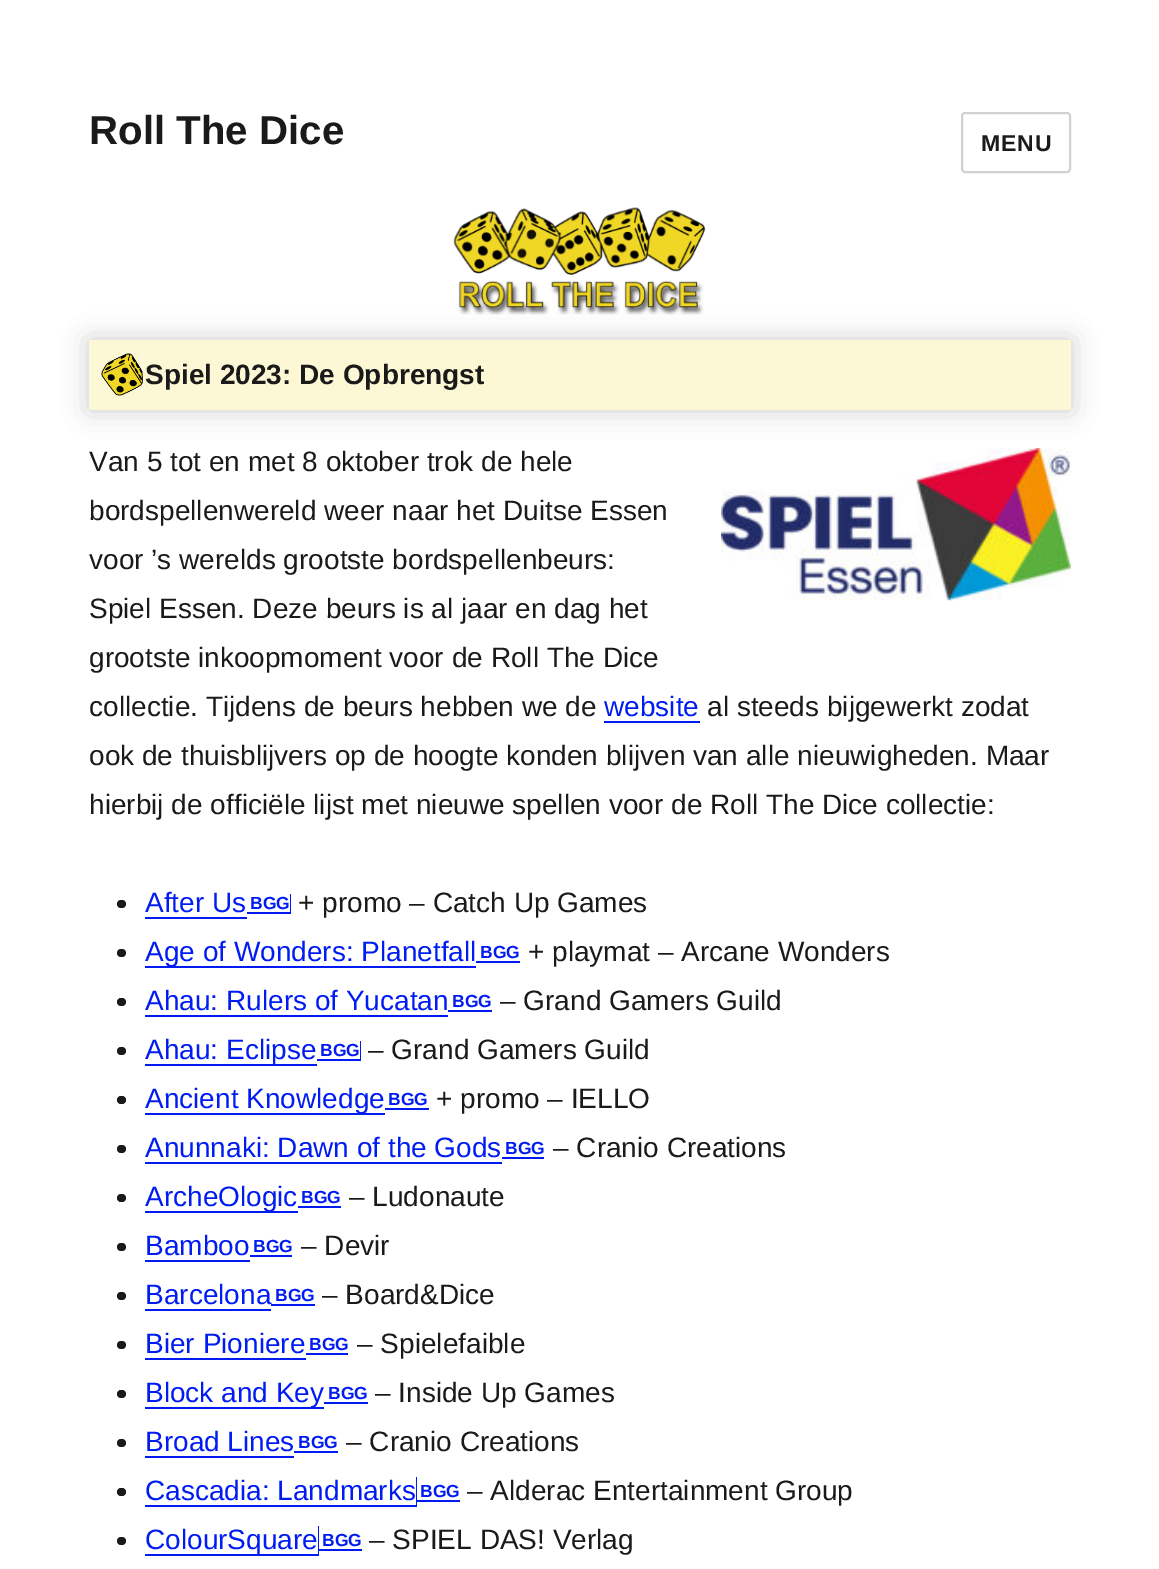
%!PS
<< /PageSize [1159 1569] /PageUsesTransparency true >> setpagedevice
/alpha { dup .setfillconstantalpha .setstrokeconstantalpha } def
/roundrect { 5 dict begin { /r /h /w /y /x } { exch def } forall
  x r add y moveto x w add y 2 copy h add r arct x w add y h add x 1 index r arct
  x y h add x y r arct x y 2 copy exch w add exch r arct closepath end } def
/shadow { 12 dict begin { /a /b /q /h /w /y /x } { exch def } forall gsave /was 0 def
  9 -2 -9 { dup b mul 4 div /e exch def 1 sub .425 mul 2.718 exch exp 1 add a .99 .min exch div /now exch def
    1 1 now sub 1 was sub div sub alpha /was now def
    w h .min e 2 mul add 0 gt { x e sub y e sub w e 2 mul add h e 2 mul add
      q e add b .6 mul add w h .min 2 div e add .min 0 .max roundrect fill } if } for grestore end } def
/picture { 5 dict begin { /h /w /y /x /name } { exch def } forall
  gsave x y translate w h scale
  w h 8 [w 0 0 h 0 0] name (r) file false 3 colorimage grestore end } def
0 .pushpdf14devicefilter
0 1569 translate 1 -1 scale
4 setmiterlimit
1 setgray
0 0 1159 1569 rectfill
/LiberationSans-Bold [40.25 0 0 -40.25 0 0] selectfont
0.102 setgray
89 144 moveto (Roll The Dice) show
0.82 setgray
2 setlinewidth
962 113 108 59 3 roundrect stroke
/LiberationSans-Bold [23 0 0 -23 0 0] selectfont
0.102 setgray
981 151 moveto 1 0 (MENU) ashow
(img1.rgb) 453 207 253 108 picture
0 setgray
89 340 982 70 0 13 0.2 shadow
0.988 0.973 0.835 setrgbcolor
89 340 982 70 rectfill
(img2.rgb) 101 353 42 43 picture
/LiberationSans-Bold [28 0 0 -28 0 0] selectfont
0.102 setgray
145 384 moveto (Spiel 2023: De Opbrengst) show
/LiberationSans-Regular [28 0 0 -28 0 0] selectfont
89 471 moveto (Van 5 tot en met 8 oktober trok de hele) show
(img3.rgb) 721 448 350 153 picture
89 520 moveto (bordspellenwereld weer naar het Duitse Essen) show
89 569 moveto (voor ’s werelds grootste bordspellenbeurs:) show
89 618 moveto (Spiel Essen. Deze beurs is al jaar en dag het) show
89 667 moveto (grootste inkoopmoment voor de Roll The Dice) show
89 716 moveto (collectie. Tijdens de beurs hebben we de) show
0 0.11 0.949 setrgbcolor
604 716 moveto (website) show
604 721 96 2 rectfill
0.102 setgray
707 716 moveto (al steeds bijgewerkt zodat) show
89 765 moveto (ook de thuisblijvers op de hoogte konden blijven van alle nieuwigheden. Maar) show
89 814 moveto (hierbij de officiële lijst met nieuwe spellen voor de Roll The Dice collectie:) show
117 900 9 8 4 roundrect fill
0 0.11 0.949 setrgbcolor
145 912 moveto (After Us) show
newpath 145 889 moveto 145 919 lineto 247 919 lineto 247 889 lineto 247 917 lineto 145 917 lineto closepath fill
newpath 247 912 moveto 247 914 lineto 291 914 lineto 291 894 lineto 290 894 lineto 290 912 lineto closepath fill
/LiberationSans-Bold [17.5 0 0 -17.5 0 0] selectfont
250 909 moveto (BGG) show
/LiberationSans-Regular [28 0 0 -28 0 0] selectfont
0.102 setgray
298 912 moveto (+ promo – Catch Up Games) show
117 949 9 8 4 roundrect fill
0 0.11 0.949 setrgbcolor
newpath 145 938 moveto 145 968 lineto 476 968 lineto 476 966 lineto 145 966 lineto closepath fill
145 961 moveto (Age of Wonders: Planetfall) show
newpath 476 961 moveto 476 963 lineto 520 963 lineto 520 943 lineto 520 961 lineto closepath fill
/LiberationSans-Bold [17.5 0 0 -17.5 0 0] selectfont
480 958 moveto (BGG) show
/LiberationSans-Regular [28 0 0 -28 0 0] selectfont
0.102 setgray
528 961 moveto (+ playmat – Arcane Wonders) show
117 998 9 8 4 roundrect fill
0 0.11 0.949 setrgbcolor
145 1010 moveto (Ahau: Rulers of Yucatan) show
newpath 145 987 moveto 145 1017 lineto 448 1017 lineto 448 1015 lineto 145 1015 lineto closepath fill
/LiberationSans-Bold [17.5 0 0 -17.5 0 0] selectfont
452 1007 moveto (BGG) show
newpath 448 1010 moveto 448 1012 lineto 492 1012 lineto 492 992 lineto 492 1010 lineto closepath fill
/LiberationSans-Regular [28 0 0 -28 0 0] selectfont
0.102 setgray
500 1010 moveto (– Grand Gamers Guild) show
117 1047 9 8 4 roundrect fill
0 0.11 0.949 setrgbcolor
newpath 145 1036 moveto 145 1066 lineto 317 1066 lineto 317 1036 lineto 317 1064 lineto 145 1064 lineto closepath fill
145 1059 moveto (Ahau: Eclipse) show
newpath 317 1059 moveto 317 1061 lineto 361 1061 lineto 361 1041 lineto 360 1041 lineto 360 1059 lineto closepath fill
/LiberationSans-Bold [17.5 0 0 -17.5 0 0] selectfont
320 1056 moveto (BGG) show
/LiberationSans-Regular [28 0 0 -28 0 0] selectfont
0.102 setgray
368 1059 moveto (– Grand Gamers Guild) show
117 1096 9 8 4 roundrect fill
0 0.11 0.949 setrgbcolor
newpath 145 1085 moveto 145 1115 lineto 385 1115 lineto 385 1113 lineto 145 1113 lineto closepath fill
145 1108 moveto (Ancient Knowledge) show
newpath 385 1108 moveto 385 1110 lineto 429 1110 lineto 429 1090 lineto 429 1108 lineto closepath fill
/LiberationSans-Bold [17.5 0 0 -17.5 0 0] selectfont
388 1105 moveto (BGG) show
/LiberationSans-Regular [28 0 0 -28 0 0] selectfont
0.102 setgray
436 1108 moveto (+ promo – IELLO) show
117 1145 9 8 4 roundrect fill
0 0.11 0.949 setrgbcolor
145 1157 moveto (Anunnaki: Dawn of the Gods) show
newpath 145 1134 moveto 145 1164 lineto 502 1164 lineto 502 1162 lineto 145 1162 lineto closepath fill
/LiberationSans-Bold [17.5 0 0 -17.5 0 0] selectfont
505 1154 moveto (BGG) show
newpath 502 1139 moveto 502 1159 lineto 544 1159 lineto 544 1157 lineto 502 1157 lineto closepath fill
/LiberationSans-Regular [28 0 0 -28 0 0] selectfont
0.102 setgray
553 1157 moveto (– Cranio Creations) show
117 1194 9 8 4 roundrect fill
0 0.11 0.949 setrgbcolor
newpath 145 1183 moveto 145 1213 lineto 298 1213 lineto 298 1183 lineto 298 1211 lineto 145 1211 lineto closepath fill
145 1206 moveto (ArcheOlogic) show
298 1206 43 2 rectfill
/LiberationSans-Bold [17.5 0 0 -17.5 0 0] selectfont
301 1203 moveto (BGG) show
/LiberationSans-Regular [28 0 0 -28 0 0] selectfont
0.102 setgray
349 1206 moveto (– Ludonaute) show
117 1243 9 8 4 roundrect fill
0 0.11 0.949 setrgbcolor
145 1255 moveto (Bamboo) show
newpath 145 1232 moveto 145 1262 lineto 250 1262 lineto 250 1260 lineto 145 1260 lineto closepath fill
/LiberationSans-Bold [17.5 0 0 -17.5 0 0] selectfont
253 1252 moveto (BGG) show
newpath 250 1237 moveto 250 1257 lineto 292 1257 lineto 292 1255 lineto 250 1255 lineto closepath fill
/LiberationSans-Regular [28 0 0 -28 0 0] selectfont
0.102 setgray
301 1255 moveto (– Devir) show
117 1292 9 8 4 roundrect fill
0 0.11 0.949 setrgbcolor
newpath 271 1286 moveto 271 1306 lineto 315 1306 lineto 315 1304 lineto 271 1304 lineto closepath fill
145 1304 moveto (Barcelona) show
newpath 145 1281 moveto 145 1311 lineto 271 1311 lineto 271 1309 lineto 145 1309 lineto closepath fill
/LiberationSans-Bold [17.5 0 0 -17.5 0 0] selectfont
275 1301 moveto (BGG) show
/LiberationSans-Regular [28 0 0 -28 0 0] selectfont
0.102 setgray
322 1304 moveto (– Board&Dice) show
117 1341 9 8 4 roundrect fill
0 0.11 0.949 setrgbcolor
145 1353 moveto (Bier Pioniere) show
newpath 145 1330 moveto 145 1360 lineto 306 1360 lineto 306 1358 lineto 145 1358 lineto closepath fill
/LiberationSans-Bold [17.5 0 0 -17.5 0 0] selectfont
309 1350 moveto (BGG) show
newpath 306 1335 moveto 306 1355 lineto 348 1355 lineto 348 1353 lineto 306 1353 lineto closepath fill
/LiberationSans-Regular [28 0 0 -28 0 0] selectfont
0.102 setgray
357 1353 moveto (– Spielefaible) show
117 1390 9 8 4 roundrect fill
0 0.11 0.949 setrgbcolor
newpath 145 1379 moveto 145 1409 lineto 324 1409 lineto 324 1379 lineto 324 1407 lineto 145 1407 lineto closepath fill
newpath 324 1402 moveto 324 1404 lineto 368 1404 lineto 368 1384 lineto 368 1402 lineto closepath fill
145 1402 moveto (Block and Key) show
/LiberationSans-Bold [17.5 0 0 -17.5 0 0] selectfont
328 1399 moveto (BGG) show
/LiberationSans-Regular [28 0 0 -28 0 0] selectfont
0.102 setgray
375 1402 moveto (– Inside Up Games) show
117 1439 9 8 4 roundrect fill
0 0.11 0.949 setrgbcolor
145 1451 moveto (Broad Lines) show
newpath 145 1428 moveto 145 1458 lineto 294 1458 lineto 294 1456 lineto 145 1456 lineto closepath fill
/LiberationSans-Bold [17.5 0 0 -17.5 0 0] selectfont
298 1448 moveto (BGG) show
newpath 294 1451 moveto 294 1453 lineto 338 1453 lineto 338 1433 lineto 338 1451 lineto closepath fill
/LiberationSans-Regular [28 0 0 -28 0 0] selectfont
0.102 setgray
346 1451 moveto (– Cranio Creations) show
117 1488 9 8 4 roundrect fill
0 0.11 0.949 setrgbcolor
newpath 145 1477 moveto 145 1507 lineto 417 1507 lineto 417 1477 lineto 416 1477 lineto 416 1505 lineto 145 1505 lineto closepath fill
145 1500 moveto (Cascadia: Landmarks) show
/LiberationSans-Bold [17.5 0 0 -17.5 0 0] selectfont
420 1497 moveto (BGG) show
417 1500 43 2 rectfill
/LiberationSans-Regular [28 0 0 -28 0 0] selectfont
0.102 setgray
467 1500 moveto (– Alderac Entertainment Group) show
117 1537 9 8 4 roundrect fill
0 0.11 0.949 setrgbcolor
newpath 145 1526 moveto 145 1556 lineto 319 1556 lineto 319 1526 lineto 318 1526 lineto 318 1554 lineto 145 1554 lineto closepath fill
145 1549 moveto (ColourSquare) show
319 1549 43 2 rectfill
/LiberationSans-Bold [17.5 0 0 -17.5 0 0] selectfont
322 1546 moveto (BGG) show
/LiberationSans-Regular [28 0 0 -28 0 0] selectfont
0.102 setgray
369 1549 moveto (– SPIEL DAS! Verlag) show
.poppdf14devicefilter showpage
